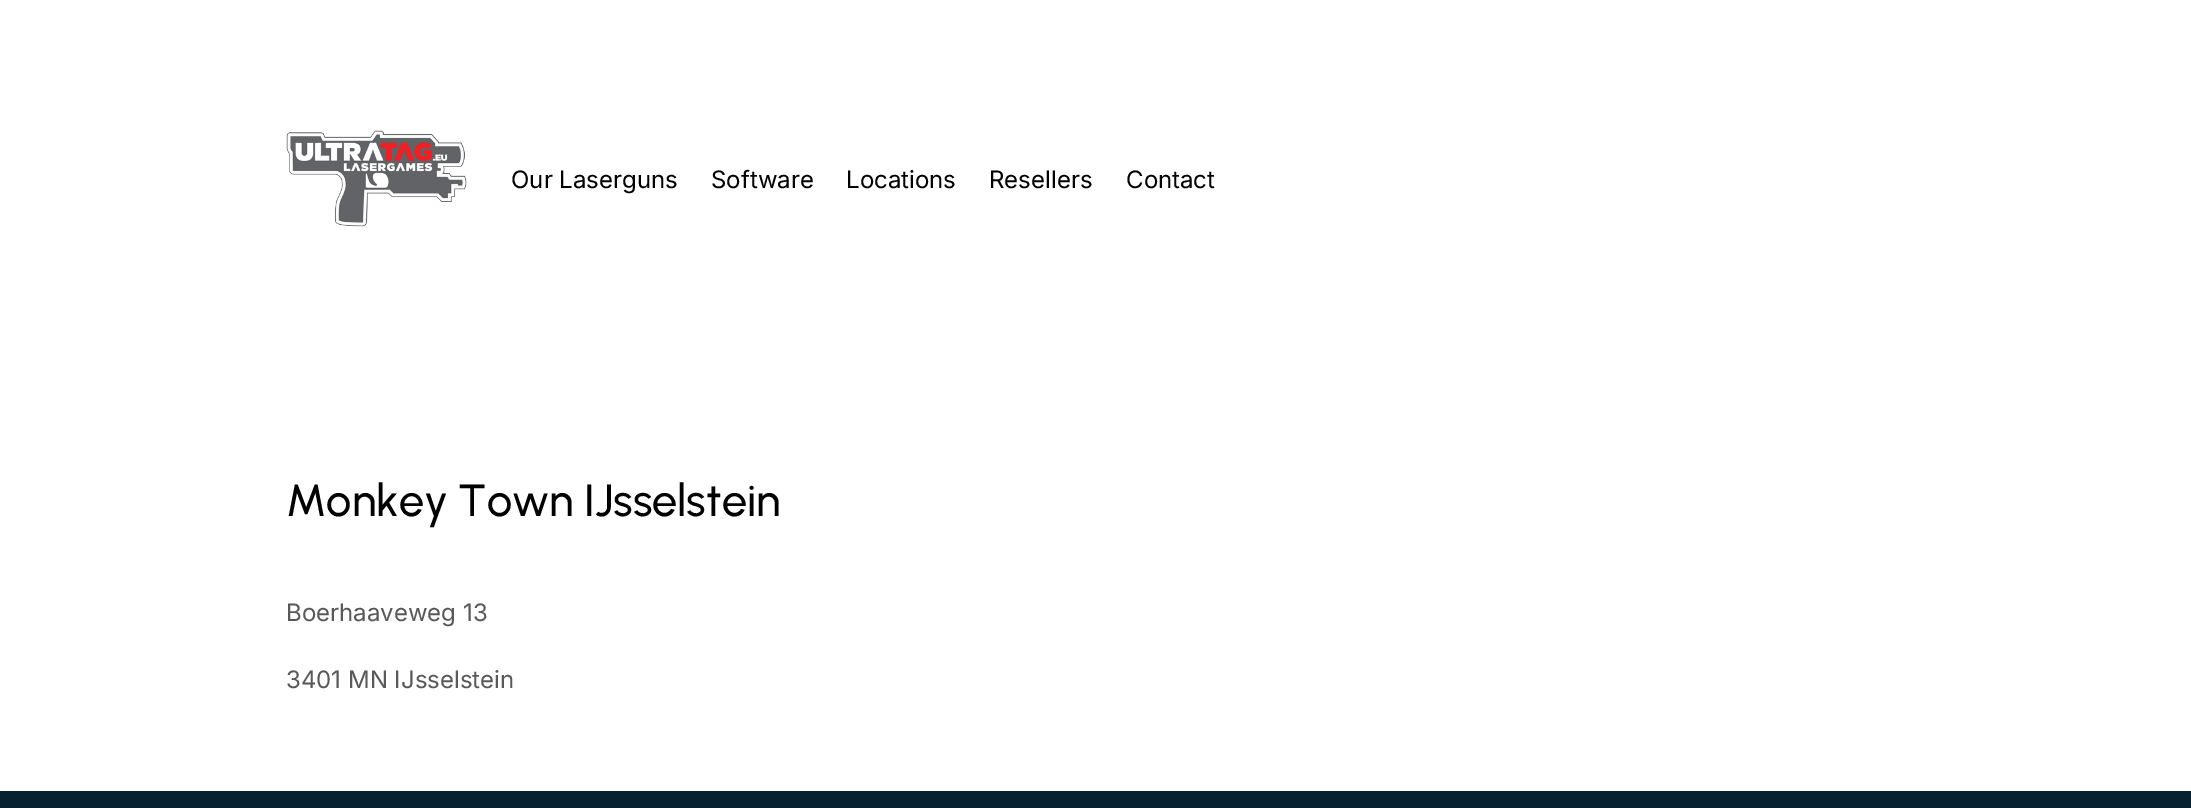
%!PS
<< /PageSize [2191 808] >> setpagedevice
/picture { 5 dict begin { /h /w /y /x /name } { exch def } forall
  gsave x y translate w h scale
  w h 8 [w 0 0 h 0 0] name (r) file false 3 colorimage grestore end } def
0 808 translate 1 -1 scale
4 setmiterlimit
1 setgray
0 0 2191 808 rectfill
(img1.rgb) 286 130 181 97 picture
/Inter-Regular [24 0 0 -24 0 0] selectfont
0 setgray
511 188 moveto (Our Laserguns) show
711 188 moveto (Software) show
846 188 moveto (Locations) show
989 188 moveto (Resellers) show
1126 188 moveto (Contact) show
/Urbanist-Medium [45 0 0 -45 0 0] selectfont
286 516 moveto (Monkey Town IJsselstein) show
/Inter-Regular [24 0 0 -24 0 0] selectfont
0.349 setgray
286 621 moveto (Boerhaaveweg 13) show
286 688 moveto (3401 MN IJsselstein) show
0.027 0.129 0.188 setrgbcolor
0 791 2191 17 rectfill
showpage
